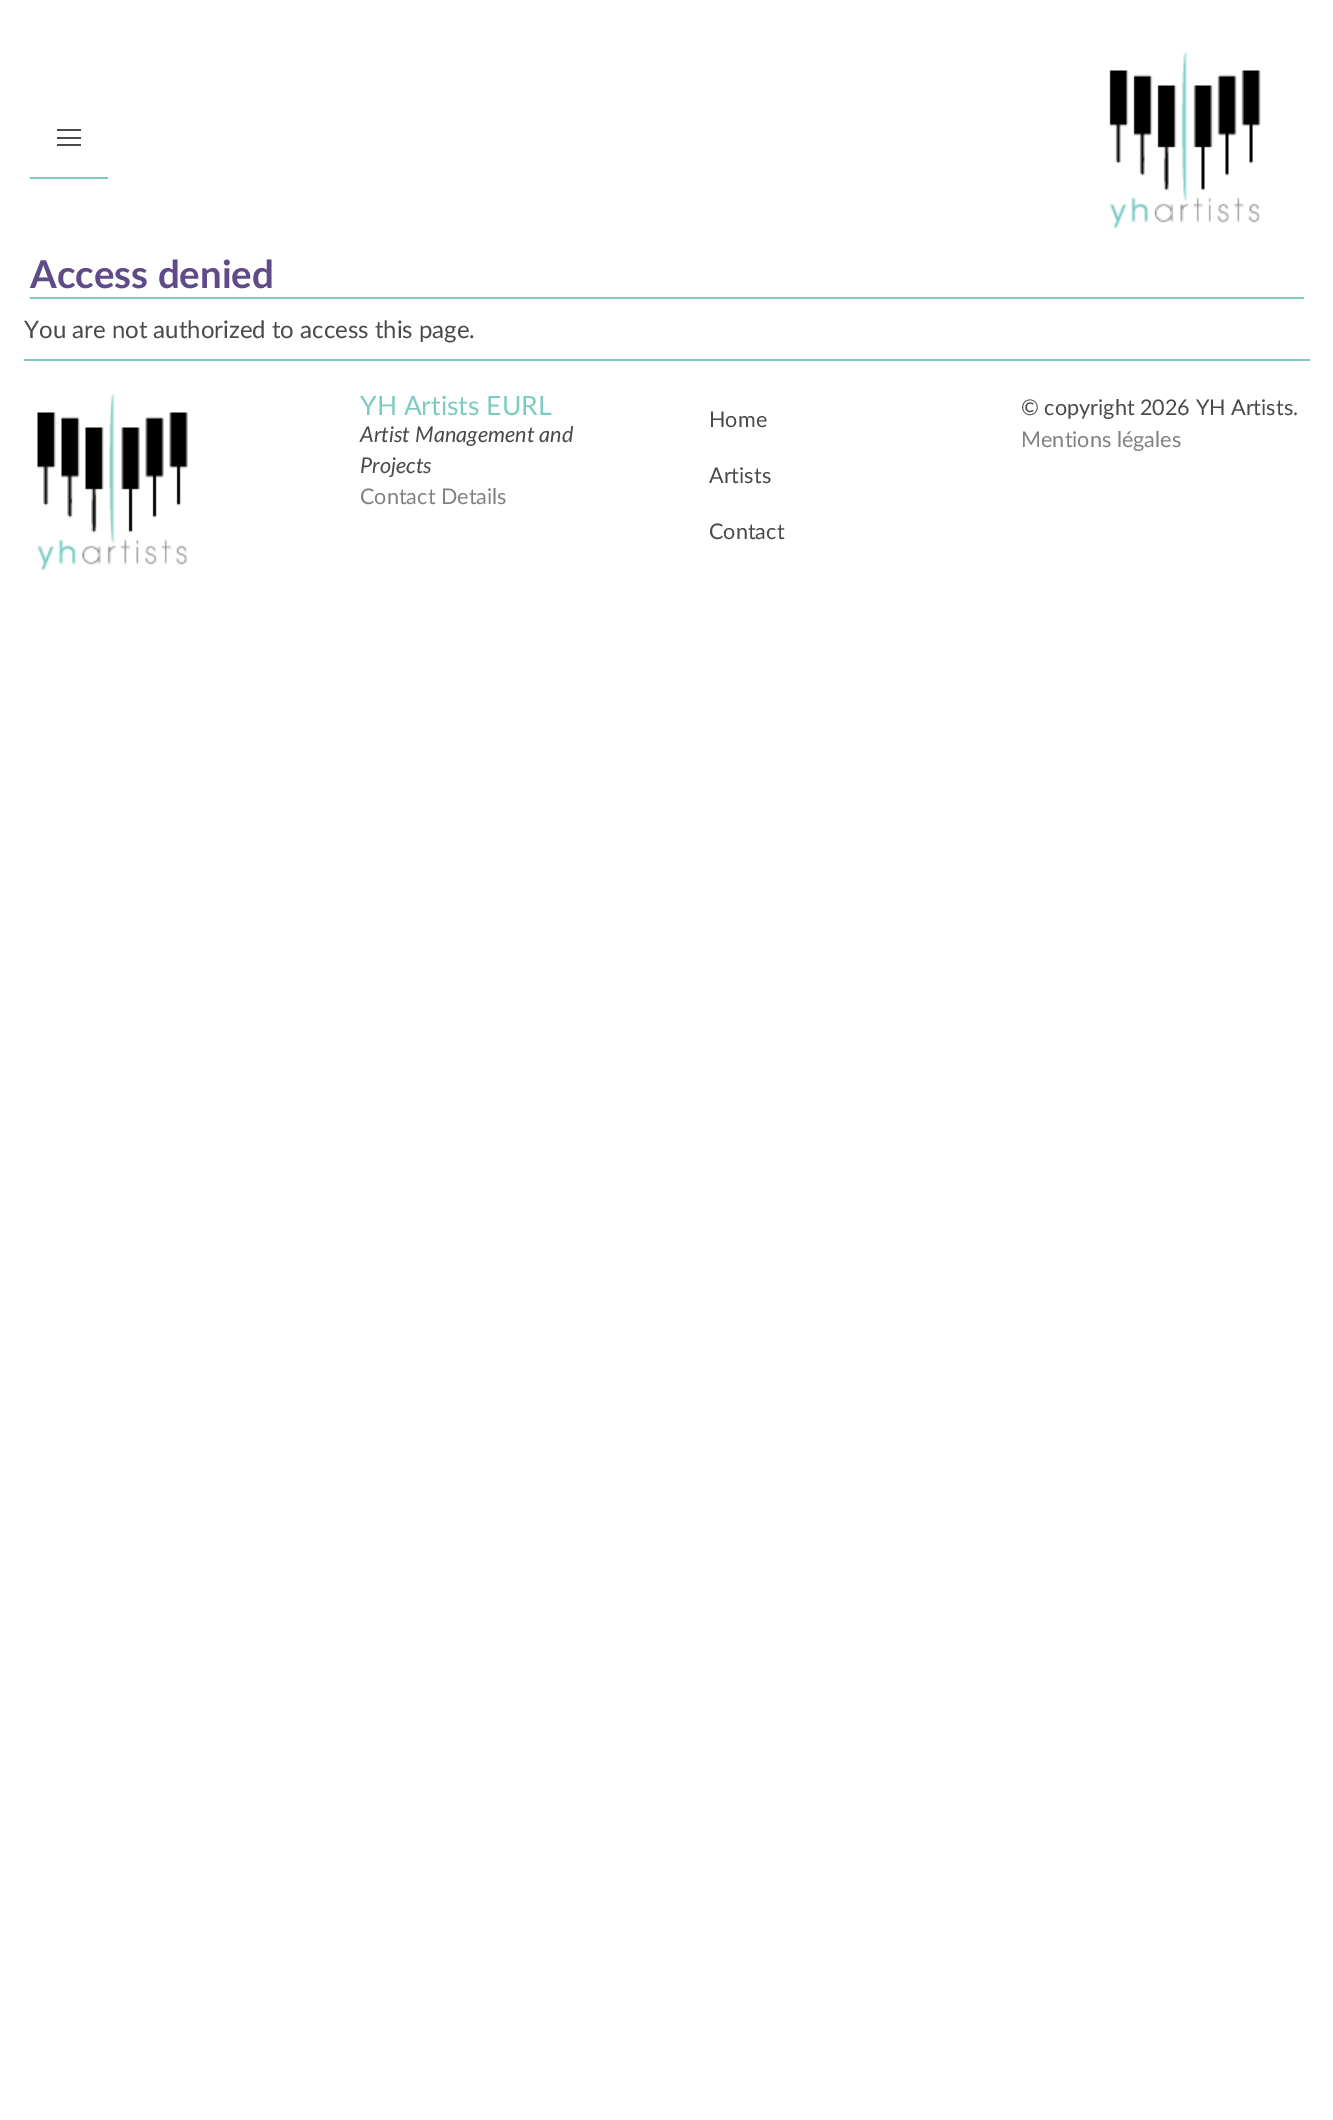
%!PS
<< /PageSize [1333 2120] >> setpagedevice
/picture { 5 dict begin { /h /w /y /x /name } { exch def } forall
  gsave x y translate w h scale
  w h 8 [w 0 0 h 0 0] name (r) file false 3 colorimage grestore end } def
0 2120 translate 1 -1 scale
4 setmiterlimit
1 setgray
0 0 1333 2120 rectfill
0.482 0.796 0.761 setrgbcolor
30 177 78 2 rectfill
0.29 setgray
57 129 24 2 rectfill
57 137 24 2 rectfill
57 144 24 2 rectfill
(img1.rgb) 1109 51 152 177 picture
0.482 0.796 0.761 setrgbcolor
30 297 1274 2 rectfill
/Lato-Bold [38.5 0 0 -38.5 0 0] selectfont
0.376 0.294 0.541 setrgbcolor
30 288 moveto (Access denied) show
/Lato-Regular [24 0 0 -24 0 0] selectfont
0.29 setgray
24 338 moveto (You are not authorized to access this page.) show
0.482 0.796 0.761 setrgbcolor
24 359 1286 2 rectfill
(img2.rgb) 37 393 151 177 picture
/Lato-Regular [26.5 0 0 -26.5 0 0] selectfont
360 415 moveto (YH Artists EURL) show
/Lato-Italic [21.6 0 0 -21.6 0 0] selectfont
0.29 setgray
360 442 moveto (Artist Management and) show
360 473 moveto (Projects) show
/Lato-Regular [21.6 0 0 -21.6 0 0] selectfont
0.502 0.506 0.518 setrgbcolor
360 504 moveto (Contact Details) show
0.29 setgray
709 427 moveto (Home) show
709 483 moveto (Artists) show
709 539 moveto (Contact) show
1021 415 moveto (© copyright 2026 YH Artists.) show
0.502 0.506 0.518 setrgbcolor
1021 447 moveto (Mentions légales) show
showpage
